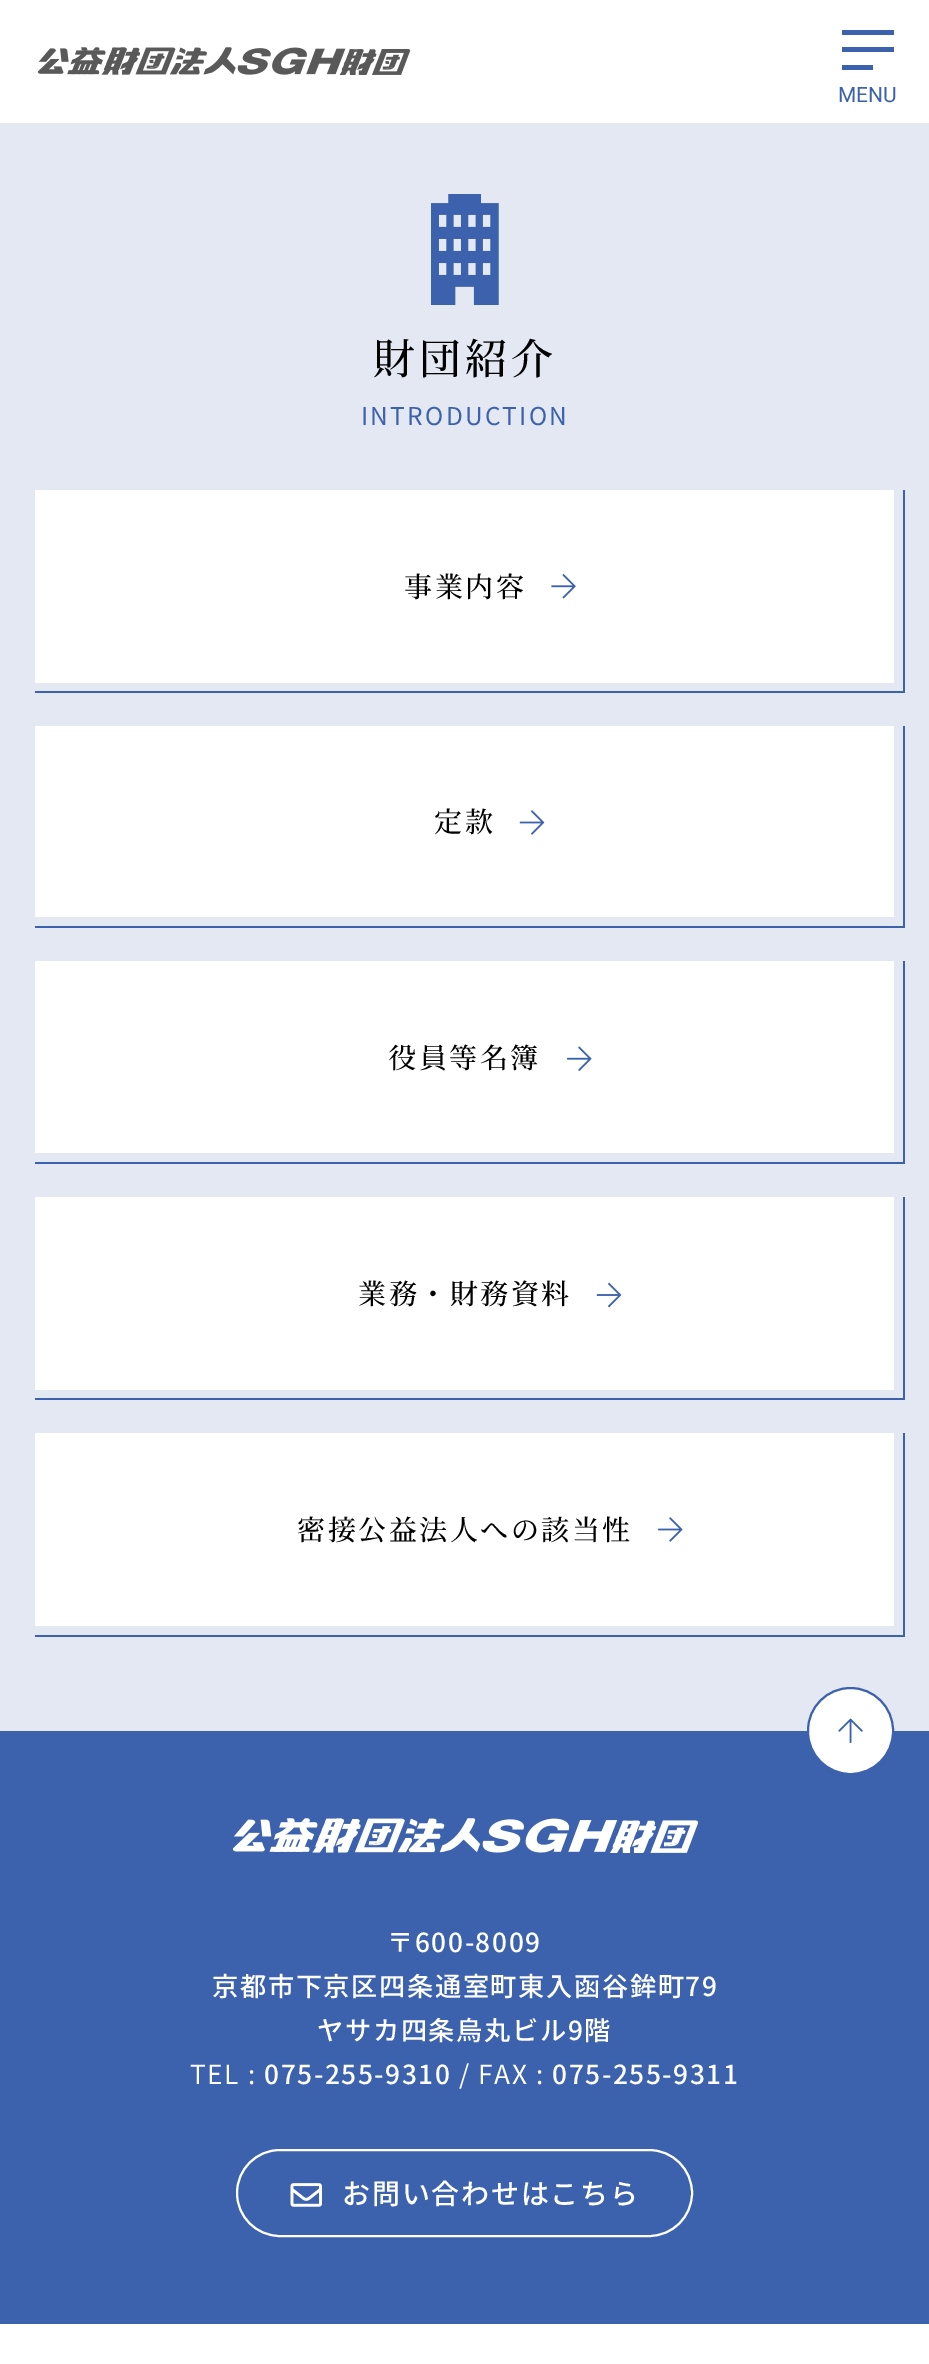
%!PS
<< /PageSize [929 2364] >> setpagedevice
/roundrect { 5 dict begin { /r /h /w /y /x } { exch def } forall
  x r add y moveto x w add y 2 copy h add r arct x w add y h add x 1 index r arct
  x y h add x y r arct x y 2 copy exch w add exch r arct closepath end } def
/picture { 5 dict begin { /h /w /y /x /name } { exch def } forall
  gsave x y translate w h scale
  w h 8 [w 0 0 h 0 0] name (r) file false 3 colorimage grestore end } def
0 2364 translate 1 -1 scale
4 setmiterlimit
0.89 0.91 0.953 setrgbcolor
0 0 929 2364 rectfill
1 setgray
0 0 929 123 rectfill
(img1.rgb) 37 47 374 28 picture
0.239 0.384 0.678 setrgbcolor
842 47 52 5 rectfill
842 30 52 5 rectfill
842 65 31 5 rectfill
/Roboto-Regular [21 0 0 -21 0 0] selectfont
838 102 moveto (MENU) show
(img2.rgb) 431 194 68 111 picture
/NotoSerifJP-Medium [42 0 0 -42 0 0] selectfont
0 setgray
373 374 moveto 4 0 (財団紹介) ashow
/NotoSansJP-Regular [24.5 0 0 -24.5 0 0] selectfont
0.239 0.384 0.678 setrgbcolor
361 425 moveto 2.25 0 (INTRODUCTION) ashow
1 setgray
35 490 859 193 rectfill
/NotoSerifJP-Medium [28 0 0 -28 0 0] selectfont
0 setgray
404 597 moveto 2.5 0 (事業内容) ashow
(img3.rgb) 551 574 25 25 picture
0.239 0.384 0.678 setrgbcolor
35 691 870 2 rectfill
903 490 2 203 rectfill
1 setgray
35 726 859 191 rectfill
0 setgray
434 832 moveto 2.5 0 (定款) ashow
(img4.rgb) 519 810 26 25 picture
0.239 0.384 0.678 setrgbcolor
35 926 870 2 rectfill
903 726 2 202 rectfill
1 setgray
35 961 859 192 rectfill
0 setgray
388 1068 moveto 2.5 0 (役員等名簿) ashow
(img5.rgb) 567 1046 25 25 picture
0.239 0.384 0.678 setrgbcolor
35 1162 870 2 rectfill
903 961 2 203 rectfill
1 setgray
35 1197 859 193 rectfill
0 setgray
358 1304 moveto 2.5 0 (業務・財務資料) ashow
(img6.rgb) 596 1282 26 26 picture
0.239 0.384 0.678 setrgbcolor
35 1398 870 2 rectfill
903 1197 2 203 rectfill
1 setgray
35 1433 859 193 rectfill
0 setgray
297 1540 moveto 2.5 0 (密接公益法人への該当性) ashow
(img7.rgb) 658 1517 25 25 picture
0.239 0.384 0.678 setrgbcolor
35 1635 870 2 rectfill
903 1433 2 203 rectfill
0 1731 929 593 rectfill
1 setgray
808 1688 85 86 42.5 roundrect gsave fill grestore
0.239 0.384 0.678 setrgbcolor
2 setlinewidth
stroke
(img8.rgb) 838 1718 25 25 picture
(img9.rgb) 233 1818 465 35 picture
/NotoSansJP-Medium [26.25 0 0 -26.25 0 0] selectfont
1 setgray
387 1952 moveto 1.6 0 (〒600-8009) ashow
212 1996 moveto 1.6 0 (京都市下京区四条通室町東入函谷鉾町79) ashow
317 2040 moveto 1.6 0 (ヤサカ四条烏丸ビル9階) ashow
/NotoSansJP-Regular [26.25 0 0 -26.25 0 0] selectfont
190 2084 moveto 1.6 0 (TEL :) ashow
/NotoSansJP-Medium [26.25 0 0 -26.25 0 0] selectfont
264 2084 moveto 1.6 0 (075-255-9310) ashow
/NotoSansJP-Regular [26.25 0 0 -26.25 0 0] selectfont
459 2084 moveto 1.6 0 (/ FAX :) ashow
/NotoSansJP-Medium [26.25 0 0 -26.25 0 0] selectfont
552 2084 moveto 1.6 0 (075-255-9311) ashow
237 2150 455 86 43 roundrect stroke
(img10.rgb) 290 2183 32 24 picture
/NotoSansJP-Medium [28 0 0 -28 0 0] selectfont
342 2204 moveto 1.75 0 (お問い合わせはこちら) ashow
0 2324 929 40 rectfill
showpage
